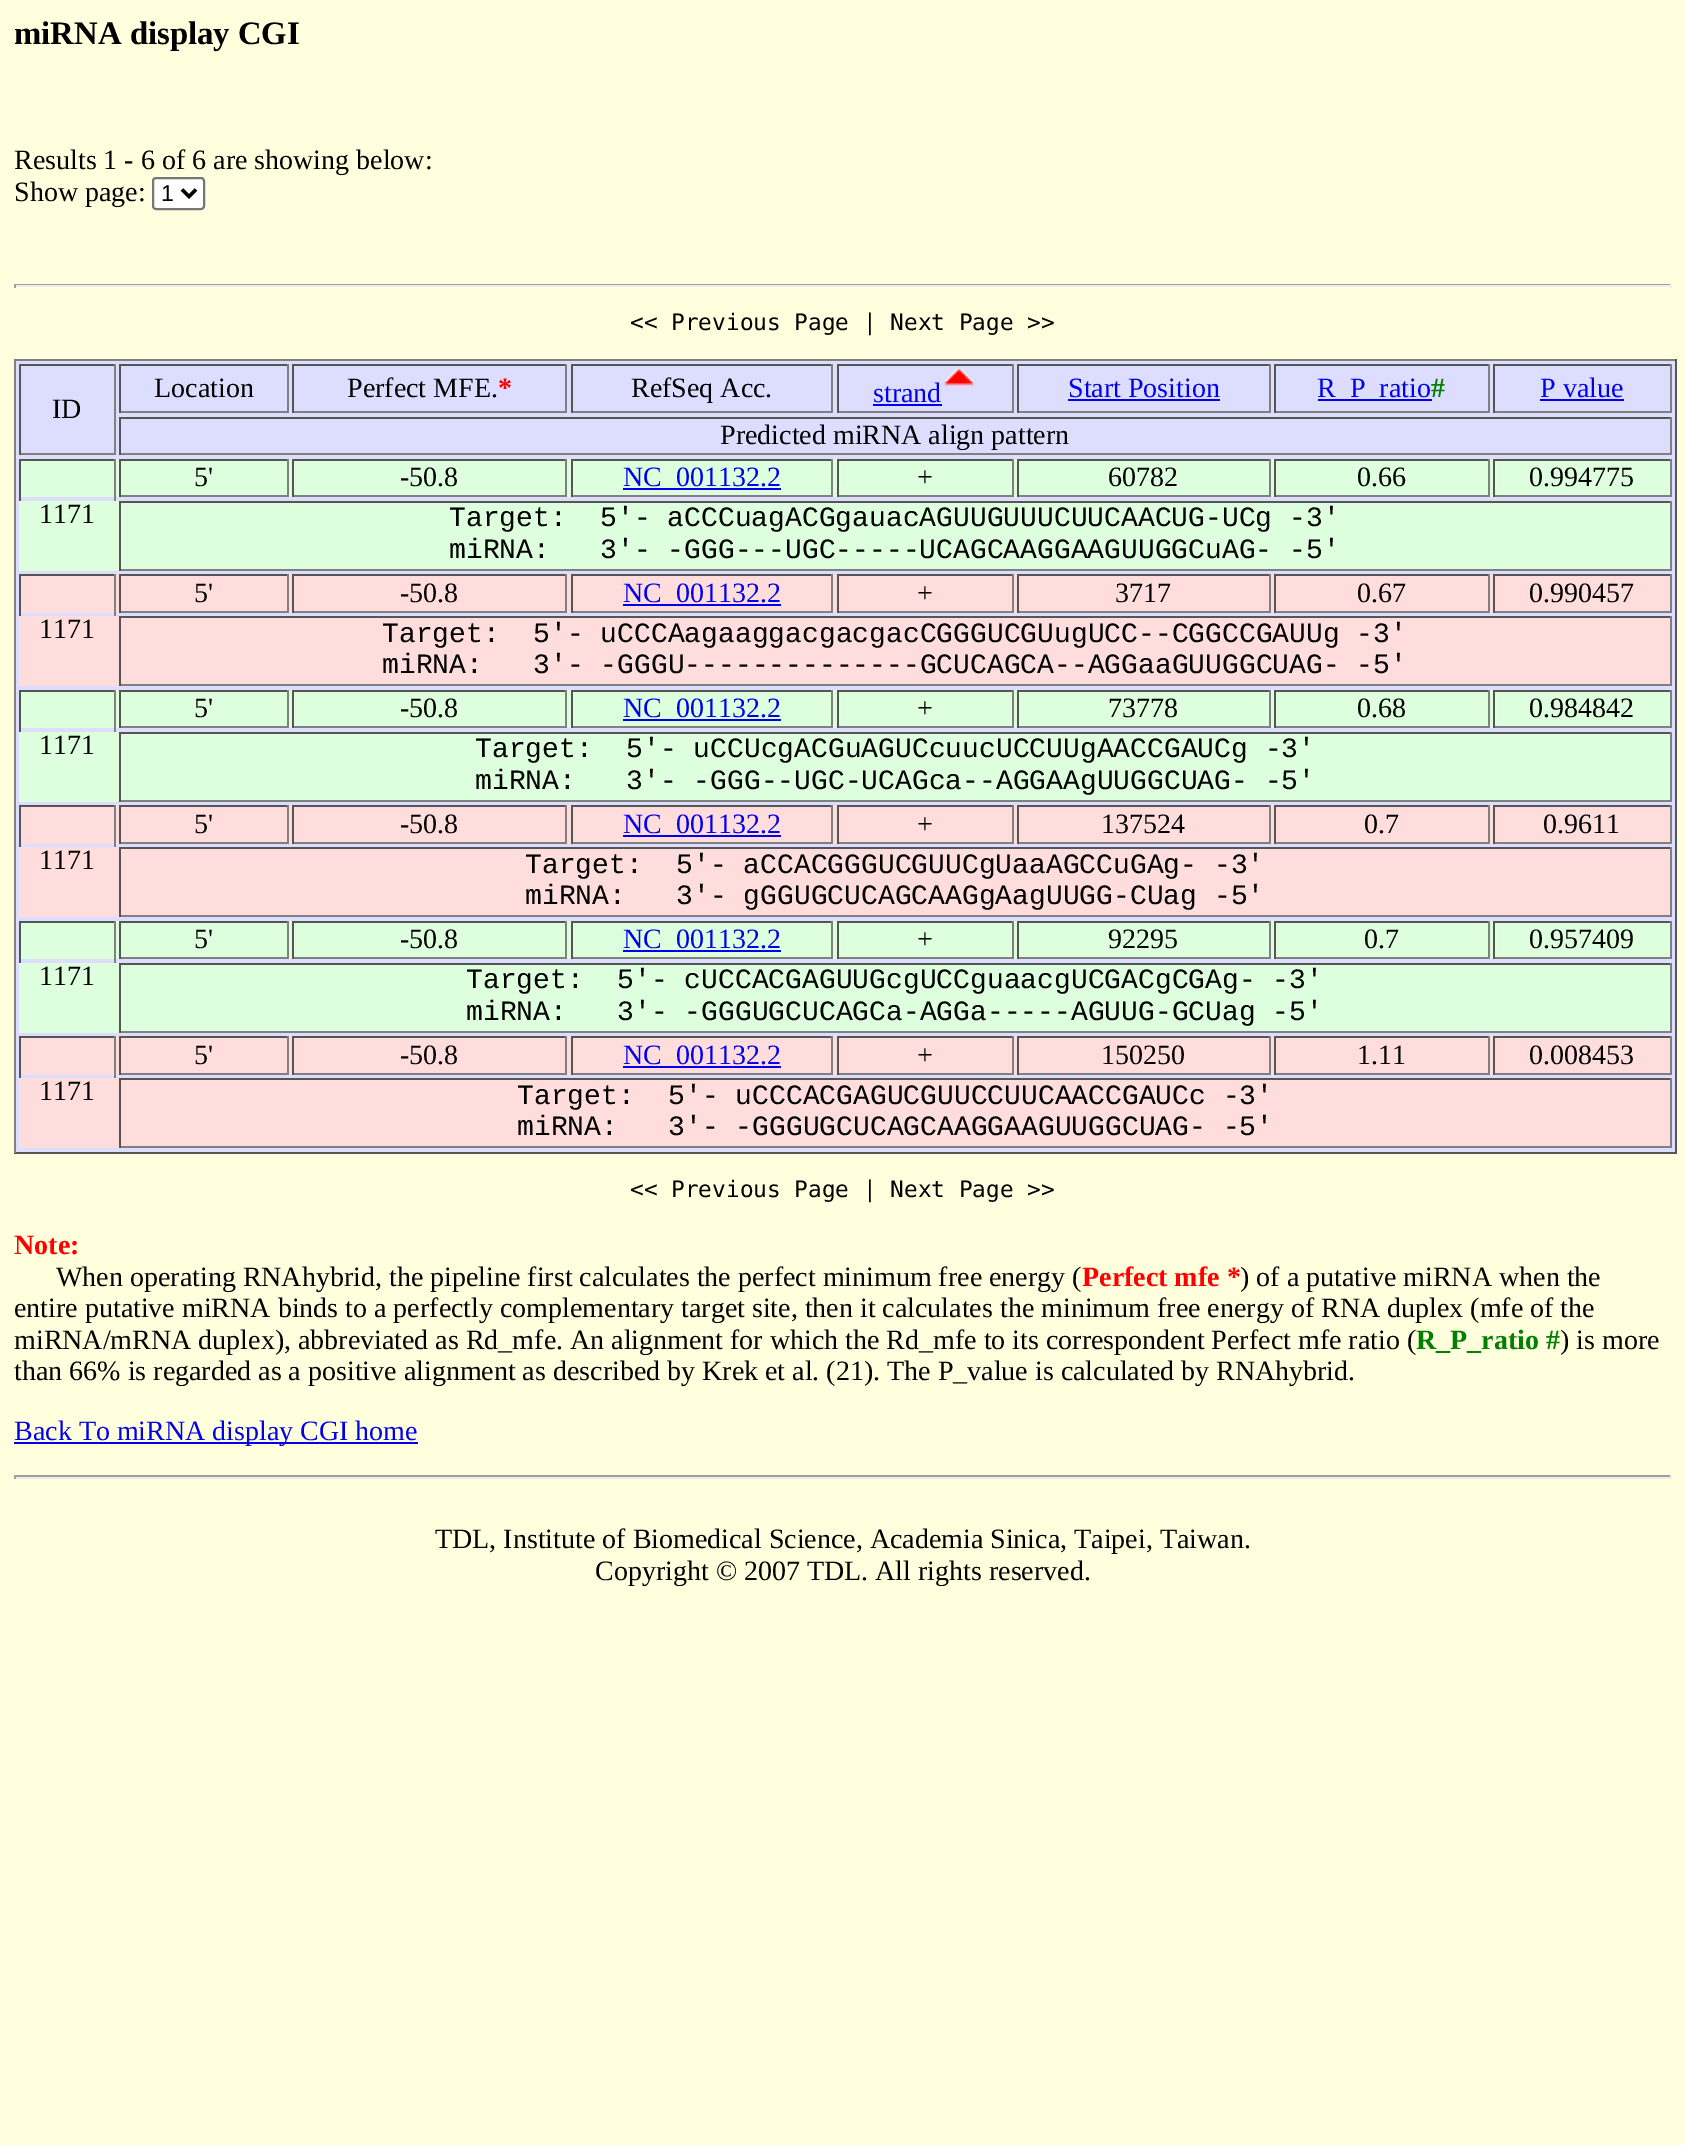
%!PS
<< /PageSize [1685 2145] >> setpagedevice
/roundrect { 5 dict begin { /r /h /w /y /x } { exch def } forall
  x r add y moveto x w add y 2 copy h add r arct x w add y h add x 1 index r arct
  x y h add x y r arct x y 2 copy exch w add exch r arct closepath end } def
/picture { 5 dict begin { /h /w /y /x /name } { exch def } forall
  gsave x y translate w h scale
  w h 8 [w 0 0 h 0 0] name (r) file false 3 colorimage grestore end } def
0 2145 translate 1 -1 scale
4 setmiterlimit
1 1 0.867 setrgbcolor
0 0 1685 2145 rectfill
/LiberationSerif-Bold [32.75 0 0 -32.75 0 0] selectfont
0 setgray
14 44 moveto (miRNA display CGI) show
/LiberationSerif-Regular [28 0 0 -28 0 0] selectfont
14 169 moveto (Results 1 - 6 of 6 are showing below:) show
14 201 moveto (Show page:) show
1 setgray
153 178 51 31 3 roundrect gsave fill grestore
0.463 setgray
2 setlinewidth
stroke
0 setgray
3.5 setlinewidth
newpath 182 189.5 moveto 189 196.5 lineto 196 189.5 lineto stroke
/LiberationSans-Regular [23 0 0 -23 0 0] selectfont
161 201 moveto (1) show
0.624 setgray
14 284 1657 1 rectfill
0.933 setgray
1670 284 2 4 rectfill
14 285 1657 2 rectfill
0.624 setgray
14 284 2 4 rectfill
/DejaVuSansMono-Regular [22.75 0 0 -22.75 0 0] selectfont
0 setgray
630 330 moveto (<< Previous Page | Next Page >>) show
0.867 0.867 1 setrgbcolor
16 361 1659 791 rectfill
0.502 setgray
14 359 1663 2 rectfill
0.333 setgray
1675 359 2 794 rectfill
14 1152 1663 2 rectfill
0.502 setgray
14 359 2 794 rectfill
0.333 setgray
119 364 170 2 rectfill
0.502 setgray
287 364 2 49 rectfill
119 411 170 2 rectfill
0.333 setgray
119 364 2 49 rectfill
/LiberationSerif-Regular [28 0 0 -28 0 0] selectfont
0 setgray
154 397 moveto (Location) show
0.333 setgray
292 364 275 2 rectfill
0.502 setgray
565 364 2 49 rectfill
292 411 275 2 rectfill
0.333 setgray
292 364 2 49 rectfill
0 setgray
347 397 moveto (Perfect MFE.) show
/LiberationSerif-Bold [28 0 0 -28 0 0] selectfont
1 0 0 setrgbcolor
498 397 moveto (*) show
0.333 setgray
571 364 262 2 rectfill
0.502 setgray
831 364 2 49 rectfill
571 411 262 2 rectfill
0.333 setgray
571 364 2 49 rectfill
/LiberationSerif-Regular [28 0 0 -28 0 0] selectfont
0 setgray
631 397 moveto (RefSeq Acc.) show
0.333 setgray
837 364 176 2 rectfill
0.502 setgray
1012 364 2 49 rectfill
837 411 176 2 rectfill
0.333 setgray
837 364 2 49 rectfill
(img1.rgb) 944 368 30 18 picture
0 0 0.933 setrgbcolor
873 402 moveto (strand) show
873 404 69 2 rectfill
0.333 setgray
1017 364 254 2 rectfill
0.502 setgray
1269 364 2 49 rectfill
1017 411 254 2 rectfill
0.333 setgray
1017 364 2 49 rectfill
0 0 0.933 setrgbcolor
1068 397 moveto (Start Position) show
1068 399 152 2 rectfill
0.333 setgray
1274 364 215 2 rectfill
0.502 setgray
1488 364 2 49 rectfill
1274 411 215 2 rectfill
0.333 setgray
1274 364 2 49 rectfill
0 0 0.933 setrgbcolor
1318 399 114 2 rectfill
1317 397 moveto (R_P_ratio) show
/LiberationSerif-Bold [28 0 0 -28 0 0] selectfont
0 0.502 0 setrgbcolor
1431 397 moveto (#) show
0.333 setgray
1493 364 178 2 rectfill
0.502 setgray
1670 364 2 49 rectfill
1493 411 178 2 rectfill
0.333 setgray
1493 364 2 49 rectfill
/LiberationSerif-Regular [28 0 0 -28 0 0] selectfont
0 0 0.933 setrgbcolor
1540 397 moveto (P value) show
1540 399 84 2 rectfill
0.333 setgray
19 364 97 2 rectfill
0.502 setgray
114 364 2 91 rectfill
19 453 97 2 rectfill
0.333 setgray
19 364 2 91 rectfill
0 setgray
52 418 moveto (ID) show
0.333 setgray
119 417 1552 2 rectfill
0.502 setgray
1670 417 2 38 rectfill
119 453 1552 2 rectfill
0.333 setgray
119 417 2 38 rectfill
0 setgray
720 444 moveto (Predicted miRNA align pattern) show
0.867 1 0.867 setrgbcolor
21 459 1649 38 rectfill
0.333 setgray
119 459 170 2 rectfill
0.502 setgray
287 459 2 38 rectfill
119 495 170 2 rectfill
0.333 setgray
119 459 2 38 rectfill
0 setgray
194 486 moveto (5') show
0.333 setgray
292 459 275 2 rectfill
0.502 setgray
565 459 2 38 rectfill
292 495 275 2 rectfill
0.333 setgray
292 459 2 38 rectfill
0 setgray
400 486 moveto (-50.8) show
0.333 setgray
571 459 262 2 rectfill
0.502 setgray
831 459 2 38 rectfill
571 495 262 2 rectfill
0.333 setgray
571 459 2 38 rectfill
0 0 0.933 setrgbcolor
623 488 158 2 rectfill
623 486 moveto (NC_001132.2) show
0.333 setgray
837 459 176 2 rectfill
0.502 setgray
1012 459 2 38 rectfill
837 495 176 2 rectfill
0.333 setgray
837 459 2 38 rectfill
0 setgray
917 486 moveto (+) show
0.333 setgray
1017 459 254 2 rectfill
0.502 setgray
1269 459 2 38 rectfill
1017 495 254 2 rectfill
0.333 setgray
1017 459 2 38 rectfill
0 setgray
1108 486 moveto (60782) show
0.333 setgray
1274 459 215 2 rectfill
0.502 setgray
1488 459 2 38 rectfill
1274 495 215 2 rectfill
0.333 setgray
1274 459 2 38 rectfill
0 setgray
1357 486 moveto (0.66) show
0.333 setgray
1493 459 178 2 rectfill
0.502 setgray
1670 459 2 38 rectfill
1493 495 178 2 rectfill
0.333 setgray
1493 459 2 38 rectfill
0 setgray
1529 486 moveto (0.994775) show
0.333 setgray
19 459 97 2 rectfill
0.502 setgray
114 459 2 42 rectfill
0.333 setgray
19 459 2 42 rectfill
0.867 1 0.867 setrgbcolor
19 501 1651 70 rectfill
0 setgray
39 523 moveto (1171) show
0.333 setgray
119 501 1552 2 rectfill
0.502 setgray
1670 501 2 70 rectfill
119 569 1552 2 rectfill
0.333 setgray
119 501 2 70 rectfill
/LiberationMono-Regular [28 0 0 -28 0 0] selectfont
0 setgray
449 526 moveto (Target:  5'- aCCCuagACGgauacAGUUGUUUCUUCAACUG-UCg -3') show
449 558 moveto (miRNA:   3'- -GGG---UGC-----UCAGCAAGGAAGUUGGCuAG- -5') show
1 0.867 0.867 setrgbcolor
21 574 1649 39 rectfill
0.333 setgray
119 574 170 2 rectfill
0.502 setgray
287 574 2 39 rectfill
119 611 170 2 rectfill
0.333 setgray
119 574 2 39 rectfill
/LiberationSerif-Regular [28 0 0 -28 0 0] selectfont
0 setgray
194 602 moveto (5') show
0.333 setgray
292 574 275 2 rectfill
0.502 setgray
565 574 2 39 rectfill
292 611 275 2 rectfill
0.333 setgray
292 574 2 39 rectfill
0 setgray
400 602 moveto (-50.8) show
0.333 setgray
571 574 262 2 rectfill
0.502 setgray
831 574 2 39 rectfill
571 611 262 2 rectfill
0.333 setgray
571 574 2 39 rectfill
0 0 0.933 setrgbcolor
623 604 158 2 rectfill
623 602 moveto (NC_001132.2) show
0.333 setgray
837 574 176 2 rectfill
0.502 setgray
1012 574 2 39 rectfill
837 611 176 2 rectfill
0.333 setgray
837 574 2 39 rectfill
0 setgray
917 602 moveto (+) show
0.333 setgray
1017 574 254 2 rectfill
0.502 setgray
1269 574 2 39 rectfill
1017 611 254 2 rectfill
0.333 setgray
1017 574 2 39 rectfill
0 setgray
1115 602 moveto (3717) show
0.333 setgray
1274 574 215 2 rectfill
0.502 setgray
1488 574 2 39 rectfill
1274 611 215 2 rectfill
0.333 setgray
1274 574 2 39 rectfill
0 setgray
1357 602 moveto (0.67) show
0.333 setgray
1493 574 178 2 rectfill
0.502 setgray
1670 574 2 39 rectfill
1493 611 178 2 rectfill
0.333 setgray
1493 574 2 39 rectfill
0 setgray
1529 602 moveto (0.990457) show
0.333 setgray
19 574 97 2 rectfill
0.502 setgray
114 574 2 42 rectfill
0.333 setgray
19 574 2 42 rectfill
1 0.867 0.867 setrgbcolor
19 616 1651 70 rectfill
0 setgray
39 638 moveto (1171) show
0.333 setgray
119 616 1552 2 rectfill
0.502 setgray
1670 616 2 70 rectfill
119 684 1552 2 rectfill
0.333 setgray
119 616 2 70 rectfill
/LiberationMono-Regular [28 0 0 -28 0 0] selectfont
0 setgray
382 642 moveto (Target:  5'- uCCCAagaaggacgacgacCGGGUCGUugUCC--CGGCCGAUUg -3') show
382 673 moveto (miRNA:   3'- -GGGU--------------GCUCAGCA--AGGaaGUUGGCUAG- -5') show
0.867 1 0.867 setrgbcolor
21 690 1649 38 rectfill
0.333 setgray
119 690 170 2 rectfill
0.502 setgray
287 690 2 38 rectfill
119 726 170 2 rectfill
0.333 setgray
119 690 2 38 rectfill
/LiberationSerif-Regular [28 0 0 -28 0 0] selectfont
0 setgray
194 717 moveto (5') show
0.333 setgray
292 690 275 2 rectfill
0.502 setgray
565 690 2 38 rectfill
292 726 275 2 rectfill
0.333 setgray
292 690 2 38 rectfill
0 setgray
400 717 moveto (-50.8) show
0.333 setgray
571 690 262 2 rectfill
0.502 setgray
831 690 2 38 rectfill
571 726 262 2 rectfill
0.333 setgray
571 690 2 38 rectfill
0 0 0.933 setrgbcolor
623 719 158 2 rectfill
623 717 moveto (NC_001132.2) show
0.333 setgray
837 690 176 2 rectfill
0.502 setgray
1012 690 2 38 rectfill
837 726 176 2 rectfill
0.333 setgray
837 690 2 38 rectfill
0 setgray
917 717 moveto (+) show
0.333 setgray
1017 690 254 2 rectfill
0.502 setgray
1269 690 2 38 rectfill
1017 726 254 2 rectfill
0.333 setgray
1017 690 2 38 rectfill
0 setgray
1108 717 moveto (73778) show
0.333 setgray
1274 690 215 2 rectfill
0.502 setgray
1488 690 2 38 rectfill
1274 726 215 2 rectfill
0.333 setgray
1274 690 2 38 rectfill
0 setgray
1357 717 moveto (0.68) show
0.333 setgray
1493 690 178 2 rectfill
0.502 setgray
1670 690 2 38 rectfill
1493 726 178 2 rectfill
0.333 setgray
1493 690 2 38 rectfill
0 setgray
1529 717 moveto (0.984842) show
0.333 setgray
19 690 97 2 rectfill
0.502 setgray
114 690 2 42 rectfill
0.333 setgray
19 690 2 42 rectfill
0.867 1 0.867 setrgbcolor
19 732 1651 70 rectfill
0 setgray
39 754 moveto (1171) show
0.333 setgray
119 732 1552 2 rectfill
0.502 setgray
1670 732 2 70 rectfill
119 800 1552 2 rectfill
0.333 setgray
119 732 2 70 rectfill
/LiberationMono-Regular [28 0 0 -28 0 0] selectfont
0 setgray
475 757 moveto (Target:  5'- uCCUcgACGuAGUCcuucUCCUUgAACCGAUCg -3') show
475 789 moveto (miRNA:   3'- -GGG--UGC-UCAGca--AGGAAgUUGGCUAG- -5') show
1 0.867 0.867 setrgbcolor
21 805 1649 39 rectfill
0.333 setgray
119 805 170 2 rectfill
0.502 setgray
287 805 2 39 rectfill
119 842 170 2 rectfill
0.333 setgray
119 805 2 39 rectfill
/LiberationSerif-Regular [28 0 0 -28 0 0] selectfont
0 setgray
194 833 moveto (5') show
0.333 setgray
292 805 275 2 rectfill
0.502 setgray
565 805 2 39 rectfill
292 842 275 2 rectfill
0.333 setgray
292 805 2 39 rectfill
0 setgray
400 833 moveto (-50.8) show
0.333 setgray
571 805 262 2 rectfill
0.502 setgray
831 805 2 39 rectfill
571 842 262 2 rectfill
0.333 setgray
571 805 2 39 rectfill
0 0 0.933 setrgbcolor
623 835 158 2 rectfill
623 833 moveto (NC_001132.2) show
0.333 setgray
837 805 176 2 rectfill
0.502 setgray
1012 805 2 39 rectfill
837 842 176 2 rectfill
0.333 setgray
837 805 2 39 rectfill
0 setgray
917 833 moveto (+) show
0.333 setgray
1017 805 254 2 rectfill
0.502 setgray
1269 805 2 39 rectfill
1017 842 254 2 rectfill
0.333 setgray
1017 805 2 39 rectfill
0 setgray
1101 833 moveto (137524) show
0.333 setgray
1274 805 215 2 rectfill
0.502 setgray
1488 805 2 39 rectfill
1274 842 215 2 rectfill
0.333 setgray
1274 805 2 39 rectfill
0 setgray
1364 833 moveto (0.7) show
0.333 setgray
1493 805 178 2 rectfill
0.502 setgray
1670 805 2 39 rectfill
1493 842 178 2 rectfill
0.333 setgray
1493 805 2 39 rectfill
0 setgray
1543 833 moveto (0.9611) show
0.333 setgray
19 805 97 2 rectfill
0.502 setgray
114 805 2 42 rectfill
0.333 setgray
19 805 2 42 rectfill
1 0.867 0.867 setrgbcolor
19 847 1651 70 rectfill
0 setgray
39 869 moveto (1171) show
0.333 setgray
119 847 1552 2 rectfill
0.502 setgray
1670 847 2 70 rectfill
119 915 1552 2 rectfill
0.333 setgray
119 847 2 70 rectfill
/LiberationMono-Regular [28 0 0 -28 0 0] selectfont
0 setgray
525 873 moveto (Target:  5'- aCCACGGGUCGUUCgUaaAGCCuGAg- -3') show
525 904 moveto (miRNA:   3'- gGGUGCUCAGCAAGgAagUUGG-CUag -5') show
0.867 1 0.867 setrgbcolor
21 921 1649 38 rectfill
0.333 setgray
119 921 170 2 rectfill
0.502 setgray
287 921 2 38 rectfill
119 957 170 2 rectfill
0.333 setgray
119 921 2 38 rectfill
/LiberationSerif-Regular [28 0 0 -28 0 0] selectfont
0 setgray
194 948 moveto (5') show
0.333 setgray
292 921 275 2 rectfill
0.502 setgray
565 921 2 38 rectfill
292 957 275 2 rectfill
0.333 setgray
292 921 2 38 rectfill
0 setgray
400 948 moveto (-50.8) show
0.333 setgray
571 921 262 2 rectfill
0.502 setgray
831 921 2 38 rectfill
571 957 262 2 rectfill
0.333 setgray
571 921 2 38 rectfill
0 0 0.933 setrgbcolor
623 950 158 2 rectfill
623 948 moveto (NC_001132.2) show
0.333 setgray
837 921 176 2 rectfill
0.502 setgray
1012 921 2 38 rectfill
837 957 176 2 rectfill
0.333 setgray
837 921 2 38 rectfill
0 setgray
917 948 moveto (+) show
0.333 setgray
1017 921 254 2 rectfill
0.502 setgray
1269 921 2 38 rectfill
1017 957 254 2 rectfill
0.333 setgray
1017 921 2 38 rectfill
0 setgray
1108 948 moveto (92295) show
0.333 setgray
1274 921 215 2 rectfill
0.502 setgray
1488 921 2 38 rectfill
1274 957 215 2 rectfill
0.333 setgray
1274 921 2 38 rectfill
0 setgray
1364 948 moveto (0.7) show
0.333 setgray
1493 921 178 2 rectfill
0.502 setgray
1670 921 2 38 rectfill
1493 957 178 2 rectfill
0.333 setgray
1493 921 2 38 rectfill
0 setgray
1529 948 moveto (0.957409) show
0.333 setgray
19 921 97 2 rectfill
0.502 setgray
114 921 2 42 rectfill
0.333 setgray
19 921 2 42 rectfill
0.867 1 0.867 setrgbcolor
19 963 1651 70 rectfill
0 setgray
39 985 moveto (1171) show
0.333 setgray
119 963 1552 2 rectfill
0.502 setgray
1670 963 2 70 rectfill
119 1031 1552 2 rectfill
0.333 setgray
119 963 2 70 rectfill
/LiberationMono-Regular [28 0 0 -28 0 0] selectfont
0 setgray
466 988 moveto (Target:  5'- cUCCACGAGUUGcgUCCguaacgUCGACgCGAg- -3') show
466 1020 moveto (miRNA:   3'- -GGGUGCUCAGCa-AGGa-----AGUUG-GCUag -5') show
1 0.867 0.867 setrgbcolor
21 1036 1649 39 rectfill
0.333 setgray
119 1036 170 2 rectfill
0.502 setgray
287 1036 2 39 rectfill
119 1073 170 2 rectfill
0.333 setgray
119 1036 2 39 rectfill
/LiberationSerif-Regular [28 0 0 -28 0 0] selectfont
0 setgray
194 1064 moveto (5') show
0.333 setgray
292 1036 275 2 rectfill
0.502 setgray
565 1036 2 39 rectfill
292 1073 275 2 rectfill
0.333 setgray
292 1036 2 39 rectfill
0 setgray
400 1064 moveto (-50.8) show
0.333 setgray
571 1036 262 2 rectfill
0.502 setgray
831 1036 2 39 rectfill
571 1073 262 2 rectfill
0.333 setgray
571 1036 2 39 rectfill
0 0 0.933 setrgbcolor
623 1066 158 2 rectfill
623 1064 moveto (NC_001132.2) show
0.333 setgray
837 1036 176 2 rectfill
0.502 setgray
1012 1036 2 39 rectfill
837 1073 176 2 rectfill
0.333 setgray
837 1036 2 39 rectfill
0 setgray
917 1064 moveto (+) show
0.333 setgray
1017 1036 254 2 rectfill
0.502 setgray
1269 1036 2 39 rectfill
1017 1073 254 2 rectfill
0.333 setgray
1017 1036 2 39 rectfill
0 setgray
1101 1064 moveto (150250) show
0.333 setgray
1274 1036 215 2 rectfill
0.502 setgray
1488 1036 2 39 rectfill
1274 1073 215 2 rectfill
0.333 setgray
1274 1036 2 39 rectfill
0 setgray
1357 1064 moveto (1.11) show
0.333 setgray
1493 1036 178 2 rectfill
0.502 setgray
1670 1036 2 39 rectfill
1493 1073 178 2 rectfill
0.333 setgray
1493 1036 2 39 rectfill
0 setgray
1529 1064 moveto (0.008453) show
0.333 setgray
19 1036 97 2 rectfill
0.502 setgray
114 1036 2 42 rectfill
0.333 setgray
19 1036 2 42 rectfill
1 0.867 0.867 setrgbcolor
19 1078 1651 70 rectfill
0 setgray
39 1100 moveto (1171) show
0.333 setgray
119 1078 1552 2 rectfill
0.502 setgray
1670 1078 2 70 rectfill
119 1146 1552 2 rectfill
0.333 setgray
119 1078 2 70 rectfill
/LiberationMono-Regular [28 0 0 -28 0 0] selectfont
0 setgray
517 1104 moveto (Target:  5'- uCCCACGAGUCGUUCCUUCAACCGAUCc -3') show
517 1135 moveto (miRNA:   3'- -GGGUGCUCAGCAAGGAAGUUGGCUAG- -5') show
/DejaVuSansMono-Regular [22.75 0 0 -22.75 0 0] selectfont
630 1197 moveto (<< Previous Page | Next Page >>) show
/LiberationSerif-Bold [28 0 0 -28 0 0] selectfont
1 0 0 setrgbcolor
14 1254 moveto (Note:) show
/LiberationSerif-Regular [28 0 0 -28 0 0] selectfont
0 setgray
56 1286 moveto (When operating RNAhybrid, the pipeline first calculates the perfect minimum free energy \() show
/LiberationSerif-Bold [28 0 0 -28 0 0] selectfont
1 0 0 setrgbcolor
1082 1286 moveto (Perfect mfe *) show
/LiberationSerif-Regular [28 0 0 -28 0 0] selectfont
0 setgray
1240 1286 moveto (\) of a putative miRNA when the) show
14 1317 moveto (entire putative miRNA binds to a perfectly complementary target site, then it calculates the minimum free energy of RNA duplex \(mfe of the) show
14 1349 moveto (miRNA/mRNA duplex\), abbreviated as Rd_mfe. An alignment for which the Rd_mfe to its correspondent Perfect mfe ratio \() show
/LiberationSerif-Bold [28 0 0 -28 0 0] selectfont
0 0.502 0 setrgbcolor
1416 1349 moveto (R_P_ratio #) show
/LiberationSerif-Regular [28 0 0 -28 0 0] selectfont
0 setgray
1560 1349 moveto (\) is more) show
14 1380 moveto (than 66% is regarded as a positive alignment as described by Krek et al. \(21\). The P_value is calculated by RNAhybrid.) show
0 0 0.933 setrgbcolor
14 1442 404 2 rectfill
14 1440 moveto (Back To miRNA display CGI home) show
0.624 setgray
14 1475 1657 2 rectfill
0.933 setgray
1670 1475 2 4 rectfill
14 1477 1657 2 rectfill
0.624 setgray
14 1475 2 4 rectfill
0 setgray
435 1548 moveto (TDL, Institute of Biomedical Science, Academia Sinica, Taipei, Taiwan.) show
595 1580 moveto (Copyright © 2007 TDL. All rights reserved.) show
showpage
